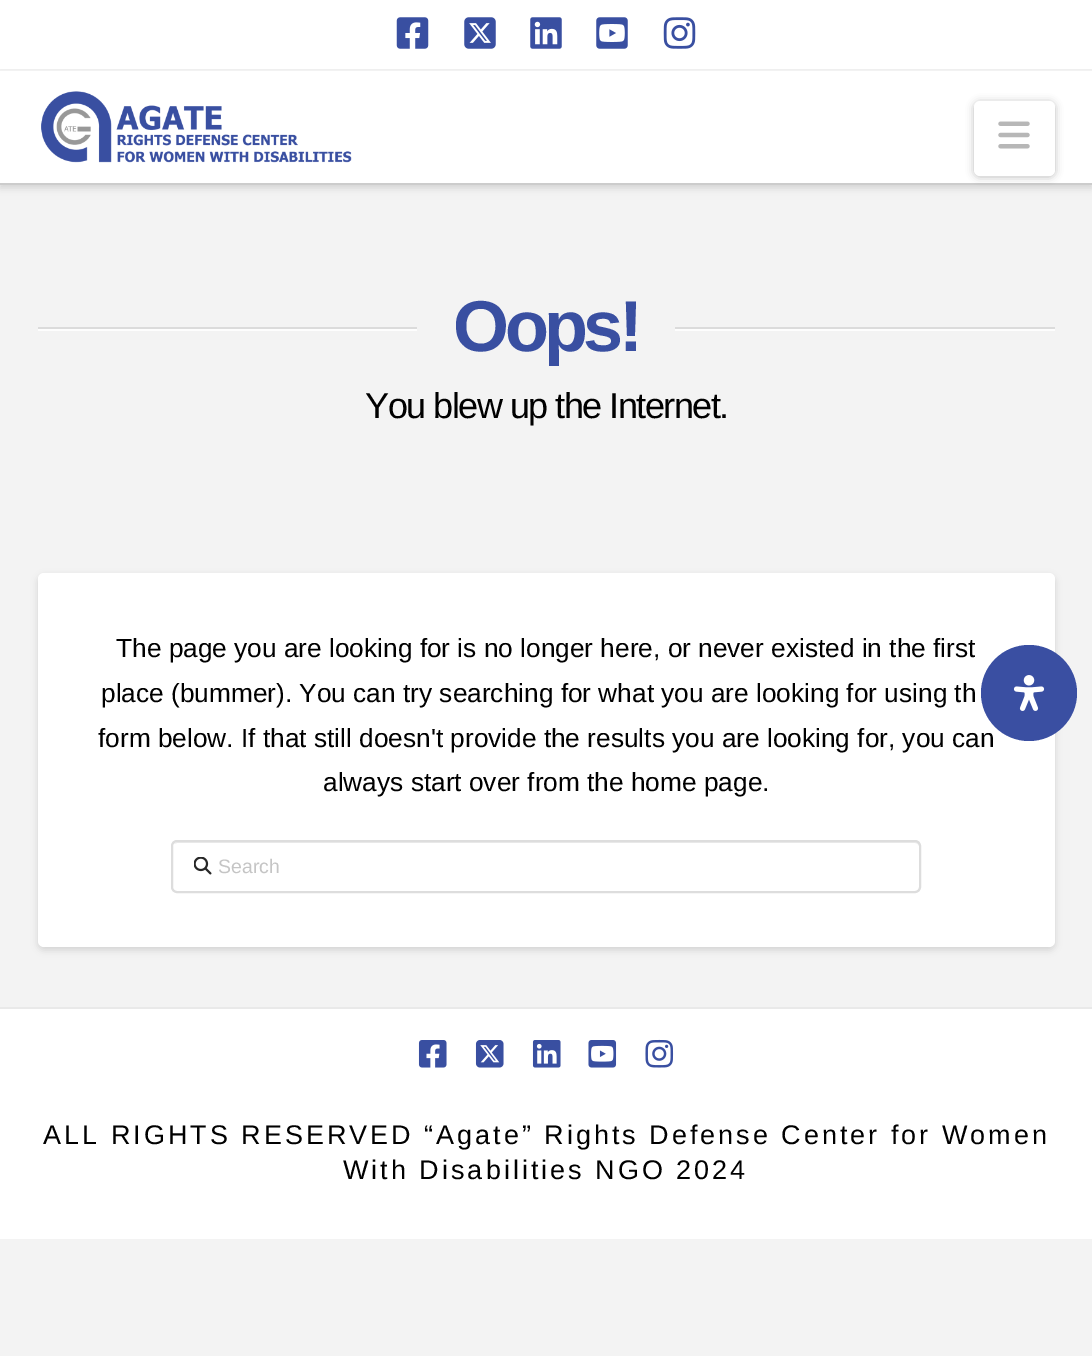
%!PS
<< /PageSize [1092 1356] /PageUsesTransparency true >> setpagedevice
/alpha { dup .setfillconstantalpha .setstrokeconstantalpha } def
/roundrect { 5 dict begin { /r /h /w /y /x } { exch def } forall
  x r add y moveto x w add y 2 copy h add r arct x w add y h add x 1 index r arct
  x y h add x y r arct x y 2 copy exch w add exch r arct closepath end } def
/shadow { 12 dict begin { /a /b /q /h /w /y /x } { exch def } forall gsave /was 0 def
  9 -2 -9 { dup b mul 4 div /e exch def 1 sub .425 mul 2.718 exch exp 1 add a .99 .min exch div /now exch def
    1 1 now sub 1 was sub div sub alpha /was now def
    w h .min e 2 mul add 0 gt { x e sub y e sub w e 2 mul add h e 2 mul add
      q e add b .6 mul add w h .min 2 div e add .min 0 .max roundrect fill } if } for grestore end } def
/picture { 5 dict begin { /h /w /y /x /name } { exch def } forall
  gsave x y translate w h scale
  w h 8 [w 0 0 h 0 0] name (r) file false 3 colorimage grestore end } def
0 .pushpdf14devicefilter
0 1356 translate 1 -1 scale
4 setmiterlimit
0.953 setgray
0 0 1092 1356 rectfill
0 setgray
0 74 1092 114 0 3.5 0.13 shadow
1 setgray
0 0 1092 69 rectfill
0.949 setgray
0 70 1092 1 rectfill
(img1.rgb) 396 17 33 32 picture
(img2.rgb) 464 17 32 32 picture
(img3.rgb) 530 17 32 32 picture
(img4.rgb) 596 17 32 32 picture
(img5.rgb) 663 17 33 32 picture
1 setgray
0 71 1092 112 rectfill
0.8 setgray
0 183 1092 2 rectfill
(img6.rgb) 41 91 311 72 picture
0 setgray
974 102 81 75 6 4 0.25 shadow
1 setgray
974 101 81 75 6 roundrect fill
(img7.rgb) 998 121 32 28 picture
0.992 setgray
38 329 379 2 rectfill
0.859 setgray
38 327 379 2 rectfill
/LiberationSans-Bold [72 0 0 -72 0 0] selectfont
0.224 0.31 0.631 setrgbcolor
453 351 moveto -4.5 0 (Oops!) ashow
0.992 setgray
675 329 380 2 rectfill
0.859 setgray
675 327 380 2 rectfill
/LiberationSans-Regular [36 0 0 -36 0 0] selectfont
0 setgray
365 418 moveto -1.5 0 (You blew up the Internet.) ashow
38 576 1017 374 6 3.5 0.13 shadow
1 setgray
38 573 1017 374 6 roundrect fill
/LiberationSans-Regular [26.25 0 0 -26.25 0 0] selectfont
0 setgray
116 657 moveto (The page you are looking for is no longer here, or never existed in the first) show
101 702 moveto (place \(bummer\). You can try searching for what you are looking for using th) show
98 747 moveto (form below. If that still doesn't provide the results you are looking for, you can) show
323 791 moveto (always start over from the home page.) show
0.925 setgray
newpath 177 843 moveto 915 843 lineto 917 843 920 845 920 848 curveto 920 847 lineto 920 844 918 842 915 842 curveto 178 842 lineto 176 842 175 843 174 844 curveto closepath fill
0.867 setgray
2 setlinewidth
172 841 748 51 5 roundrect stroke
(img8.rgb) 194 857 18 18 picture
/LiberationSans-Regular [19.5 0 0 -19.5 0 0] selectfont
0.773 setgray
218 873 moveto (Search) show
1 setgray
0 1009 1092 230 rectfill
0.914 setgray
0 1007 1092 2 rectfill
(img9.rgb) 418 1040 29 28 picture
(img10.rgb) 475 1040 29 28 picture
(img11.rgb) 532 1040 29 28 picture
(img12.rgb) 588 1040 29 28 picture
(img13.rgb) 645 1039 29 29 picture
/LiberationSans-Regular [27 0 0 -27 0 0] selectfont
0 setgray
43 1144 moveto 3 0 (ALL RIGHTS RESERVED “Agate” Rights Defense Center for Women) ashow
343 1179 moveto 3 0 (With Disabilities NGO 2024) ashow
0.227 0.31 0.635 setrgbcolor
newpath 1029 693 48 0 360 arc closepath fill
(img14.rgb) 1013 675 32 36 picture
.poppdf14devicefilter showpage
